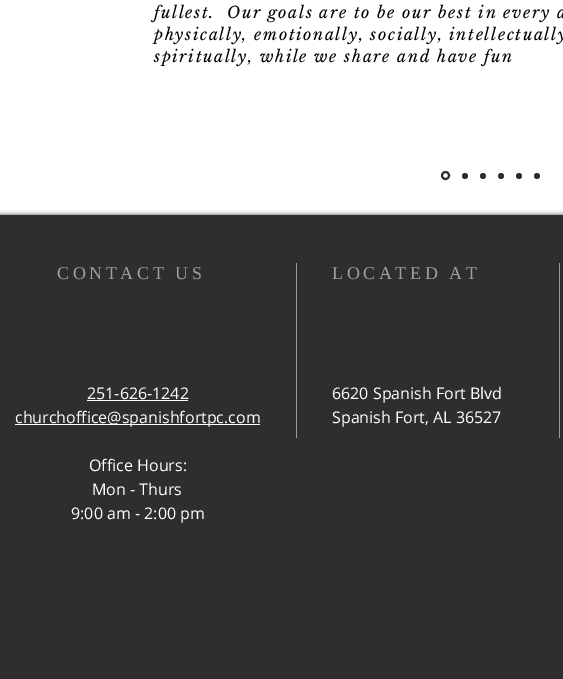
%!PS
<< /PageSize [563 679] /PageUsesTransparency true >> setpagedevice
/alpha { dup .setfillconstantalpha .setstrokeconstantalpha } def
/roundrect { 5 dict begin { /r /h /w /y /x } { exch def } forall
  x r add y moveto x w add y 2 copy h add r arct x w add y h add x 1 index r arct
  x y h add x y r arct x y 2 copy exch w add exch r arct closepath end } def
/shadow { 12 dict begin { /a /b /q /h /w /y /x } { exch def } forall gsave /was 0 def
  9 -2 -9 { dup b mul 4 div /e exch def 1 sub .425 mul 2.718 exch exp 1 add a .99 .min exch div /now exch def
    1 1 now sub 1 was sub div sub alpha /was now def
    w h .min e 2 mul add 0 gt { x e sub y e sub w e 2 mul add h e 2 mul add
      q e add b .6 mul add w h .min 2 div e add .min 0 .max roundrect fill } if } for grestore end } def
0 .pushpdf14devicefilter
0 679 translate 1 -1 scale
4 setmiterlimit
1 setgray
0 0 563 679 rectfill
/LibreBaskerville-Italic [16 0 0 -16 0 0] selectfont
0 setgray
154 18 moveto 1.6 0 (fullest.  Our goals are to be our best in every a) ashow
154 40 moveto 1.6 0 (physically, emotionally, socially, intellectually) ashow
154 62 moveto 1.6 0 (spiritually, while we share and have fun) ashow
0.184 0.18 0.18 setrgbcolor
2 setlinewidth
newpath 445.5 175.5 3.5 0 360 arc closepath stroke
newpath 465 176 3 0 360 arc closepath fill
newpath 483 176 3 0 360 arc closepath fill
newpath 501 176 3 0 360 arc closepath fill
newpath 519 176 3 0 360 arc closepath fill
newpath 537 176 3 0 360 arc closepath fill
0 setgray
0 215 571 464 0 2.5 0.7 shadow
0.184 0.18 0.18 setrgbcolor
0 215 563 464 rectfill
/LiberationSerif-Regular [18 0 0 -18 0 0] selectfont
0.627 0.627 0.624 setrgbcolor
57 279 moveto 3.6 0 (CONTACT US) ashow
0.6 setgray
296 263 1 175 rectfill
0.627 0.627 0.624 setrgbcolor
332 279 moveto 3.6 0 (LOCATED AT) ashow
0.6 setgray
559 263 1 175 rectfill
/OpenSans-Regular [16 0 0 -16 0 0] selectfont
1 setgray
87 399 moveto (251-626-1242) show
87 400 101 1 rectfill
15 424 245 1 rectfill
15 423 moveto (churchoffice@spanishfortpc.com) show
89 471 moveto (Office Hours:) show
92 495 moveto (Mon - Thurs) show
71 519 moveto (9:00 am - 2:00 pm) show
332 399 moveto (6620 Spanish Fort Blvd) show
332 423 moveto (Spanish Fort, AL 36527) show
.poppdf14devicefilter showpage
